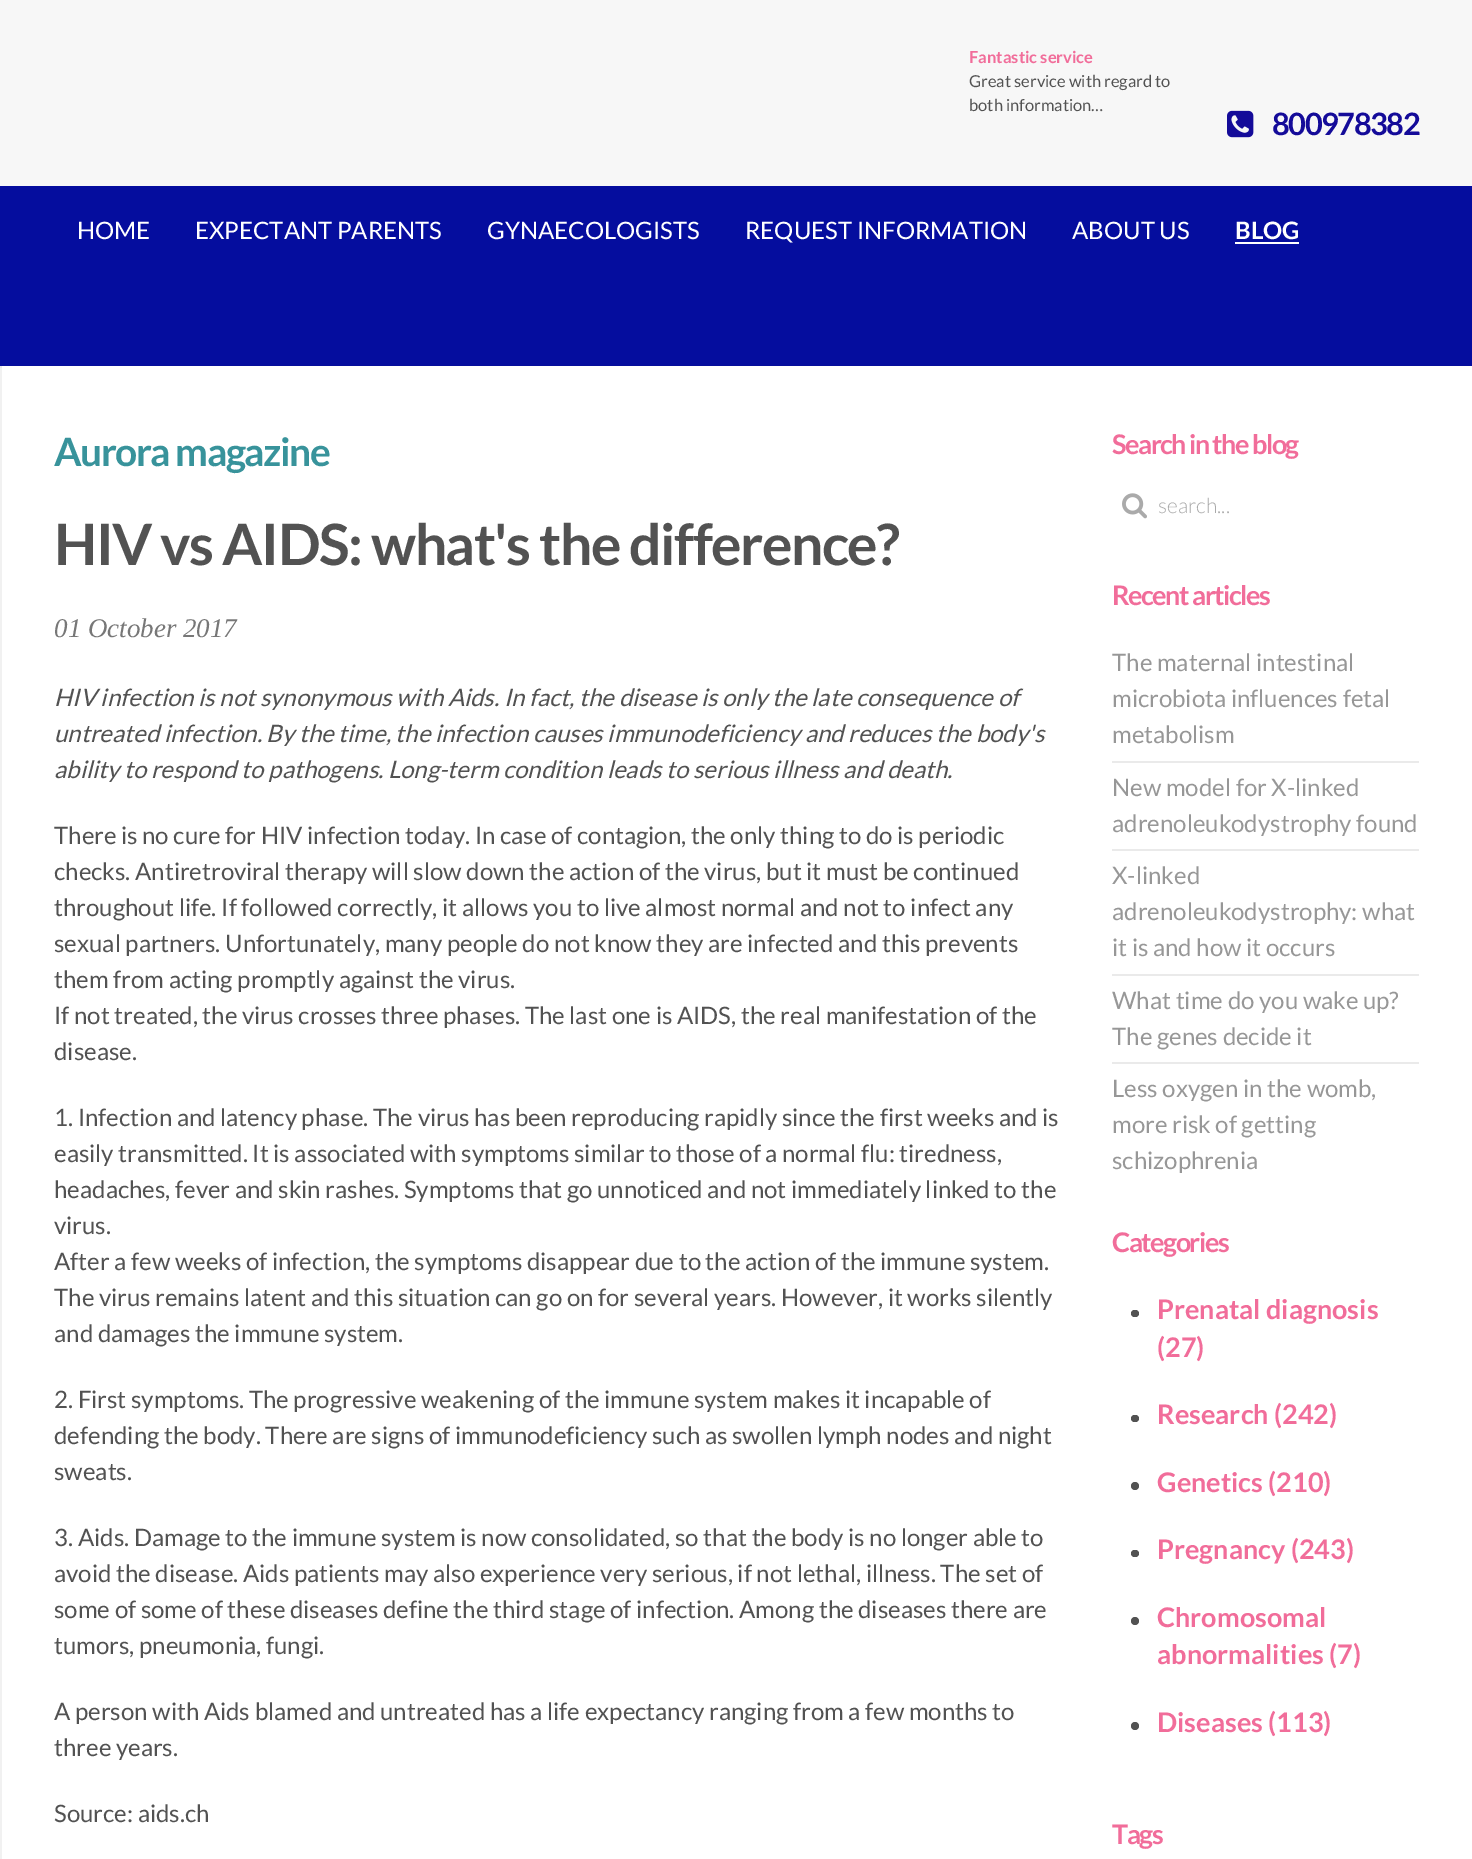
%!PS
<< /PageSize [1472 1859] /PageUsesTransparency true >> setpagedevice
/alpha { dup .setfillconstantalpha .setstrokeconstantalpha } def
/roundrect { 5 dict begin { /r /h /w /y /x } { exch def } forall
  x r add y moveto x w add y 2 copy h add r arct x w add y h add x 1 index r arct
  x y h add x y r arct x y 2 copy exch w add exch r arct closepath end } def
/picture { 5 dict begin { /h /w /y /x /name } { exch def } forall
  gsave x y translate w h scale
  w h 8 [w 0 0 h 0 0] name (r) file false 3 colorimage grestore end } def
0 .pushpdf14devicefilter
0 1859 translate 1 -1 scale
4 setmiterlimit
0.969 setgray
0 0 1472 1859 rectfill
/Lato-Bold [16.5 0 0 -16.5 0 0] selectfont
0.945 0.427 0.604 setrgbcolor
969 63 moveto (Fantastic service) show
/Lato-Regular [16.5 0 0 -16.5 0 0] selectfont
0.322 setgray
969 87 moveto (Great service with regard to) show
969 111 moveto (both information…) show
(img1.rgb) 1227 110 27 28 picture
/Lato-Bold [30.75 0 0 -30.75 0 0] selectfont
0.078 0.043 0.6 setrgbcolor
1272 135 moveto -1.5 0 (800978382) ashow
0.937 setgray
0 366 2 2 rectfill
0.02 0.051 0.62 setrgbcolor
0 186 1472 180 rectfill
/Lato-Regular [24 0 0 -24 0 0] selectfont
1 setgray
77 239 moveto (HOME) show
195 239 moveto (EXPECTANT PARENTS) show
487 239 moveto (GYNAECOLOGISTS) show
745 239 moveto (REQUEST INFORMATION) show
1072 239 moveto (ABOUT US) show
/Lato-Bold [24 0 0 -24 0 0] selectfont
1235 239 moveto (BLOG) show
1235 242 64 2 rectfill
0.03 alpha
0.184 0.192 0.208 setrgbcolor
2 setlinewidth
1 366 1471 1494 rectstroke
1 alpha
1 setgray
2 366 1470 1493 rectfill
/Lato-Bold [39 0 0 -39 0 0] selectfont
0.22 0.576 0.608 setrgbcolor
54 466 moveto -1.5 0 (Aurora magazine) ashow
/Lato-Bold [57 0 0 -57 0 0] selectfont
0.322 setgray
54 565 moveto -1.5 0 (HIV vs AIDS: what's the difference?) ashow
/LiberationSerif-Italic [27 0 0 -27 0 0] selectfont
0.467 setgray
54 637 moveto (01 October 2017) show
/Lato-Italic [24 0 0 -24 0 0] selectfont
0.322 setgray
54 706 moveto (HIV infection is not synonymous with Aids. In fact, the disease is only the late consequence of) show
54 742 moveto (untreated infection. By the time, the infection causes immunodeficiency and reduces the body's) show
54 778 moveto (ability to respond to pathogens. Long-term condition leads to serious illness and death.) show
/Lato-Regular [24 0 0 -24 0 0] selectfont
54 844 moveto (There is no cure for HIV infection today. In case of contagion, the only thing to do is periodic) show
54 880 moveto (checks. Antiretroviral therapy will slow down the action of the virus, but it must be continued) show
54 916 moveto (throughout life. If followed correctly, it allows you to live almost normal and not to infect any) show
54 952 moveto (sexual partners. Unfortunately, many people do not know they are infected and this prevents) show
54 988 moveto (them from acting promptly against the virus.) show
54 1024 moveto (If not treated, the virus crosses three phases. The last one is AIDS, the real manifestation of the) show
54 1060 moveto (disease.) show
54 1126 moveto (1. Infection and latency phase. The virus has been reproducing rapidly since the first weeks and is) show
54 1162 moveto (easily transmitted. It is associated with symptoms similar to those of a normal flu: tiredness,) show
54 1198 moveto (headaches, fever and skin rashes. Symptoms that go unnoticed and not immediately linked to the) show
54 1234 moveto (virus.) show
54 1270 moveto (After a few weeks of infection, the symptoms disappear due to the action of the immune system.) show
54 1306 moveto (The virus remains latent and this situation can go on for several years. However, it works silently) show
54 1342 moveto (and damages the immune system.) show
54 1408 moveto (2. First symptoms. The progressive weakening of the immune system makes it incapable of) show
54 1444 moveto (defending the body. There are signs of immunodeficiency such as swollen lymph nodes and night) show
54 1480 moveto (sweats.) show
54 1546 moveto (3. Aids. Damage to the immune system is now consolidated, so that the body is no longer able to) show
54 1582 moveto (avoid the disease. Aids patients may also experience very serious, if not lethal, illness. The set of) show
54 1618 moveto (some of some of these diseases define the third stage of infection. Among the diseases there are) show
54 1654 moveto (tumors, pneumonia, fungi.) show
54 1720 moveto (A person with Aids blamed and untreated has a life expectancy ranging from a few months to) show
54 1756 moveto (three years.) show
54 1822 moveto (Source: aids.ch) show
/Lato-Bold [27 0 0 -27 0 0] selectfont
0.945 0.427 0.604 setrgbcolor
1112 454 moveto -1.5 0 (Search in the blog) ashow
(img2.rgb) 1122 493 25 26 picture
/Lato-Light [21 0 0 -21 0 0] selectfont
0.667 setgray
1158 513 moveto (search...) show
/Lato-Bold [27 0 0 -27 0 0] selectfont
0.945 0.427 0.604 setrgbcolor
1112 605 moveto -1.5 0 (Recent articles) ashow
/Lato-Regular [24 0 0 -24 0 0] selectfont
0.592 setgray
1112 671 moveto (The maternal intestinal) show
1112 707 moveto (microbiota influences fetal) show
1112 743 moveto (metabolism) show
0.918 setgray
1112 761 307 2 rectfill
0.592 setgray
1112 796 moveto (New model for X-linked) show
1112 832 moveto (adrenoleukodystrophy found) show
0.918 setgray
1112 849 307 2 rectfill
0.592 setgray
1112 884 moveto (X-linked) show
1112 920 moveto (adrenoleukodystrophy: what) show
1112 956 moveto (it is and how it occurs) show
0.918 setgray
1112 974 307 2 rectfill
0.592 setgray
1112 1009 moveto (What time do you wake up?) show
1112 1045 moveto (The genes decide it) show
0.918 setgray
1112 1062 307 2 rectfill
0.592 setgray
1112 1097 moveto (Less oxygen in the womb,) show
1112 1133 moveto (more risk of getting) show
1112 1169 moveto (schizophrenia) show
/Lato-Bold [27 0 0 -27 0 0] selectfont
0.945 0.427 0.604 setrgbcolor
1112 1252 moveto -1.5 0 (Categories) ashow
0.322 setgray
1131 1310 8 7 3.5 roundrect fill
0.945 0.427 0.604 setrgbcolor
1157 1319 moveto (Prenatal diagnosis) show
1157 1357 moveto (\(27\)) show
0.322 setgray
1131 1415 8 7 3.5 roundrect fill
0.945 0.427 0.604 setrgbcolor
1157 1424 moveto (Research \(242\)) show
0.322 setgray
newpath 1135 1486 4 0 360 arc closepath fill
0.945 0.427 0.604 setrgbcolor
1157 1492 moveto (Genetics \(210\)) show
0.322 setgray
1131 1550 8 7 3.5 roundrect fill
0.945 0.427 0.604 setrgbcolor
1157 1559 moveto (Pregnancy \(243\)) show
0.322 setgray
newpath 1135 1621 4 0 360 arc closepath fill
0.945 0.427 0.604 setrgbcolor
1157 1627 moveto (Chromosomal) show
1157 1664 moveto (abnormalities \(7\)) show
0.322 setgray
newpath 1135 1726 4 0 360 arc closepath fill
0.945 0.427 0.604 setrgbcolor
1157 1732 moveto (Diseases \(113\)) show
1112 1844 moveto -1.5 0 (Tags) ashow
.poppdf14devicefilter showpage
